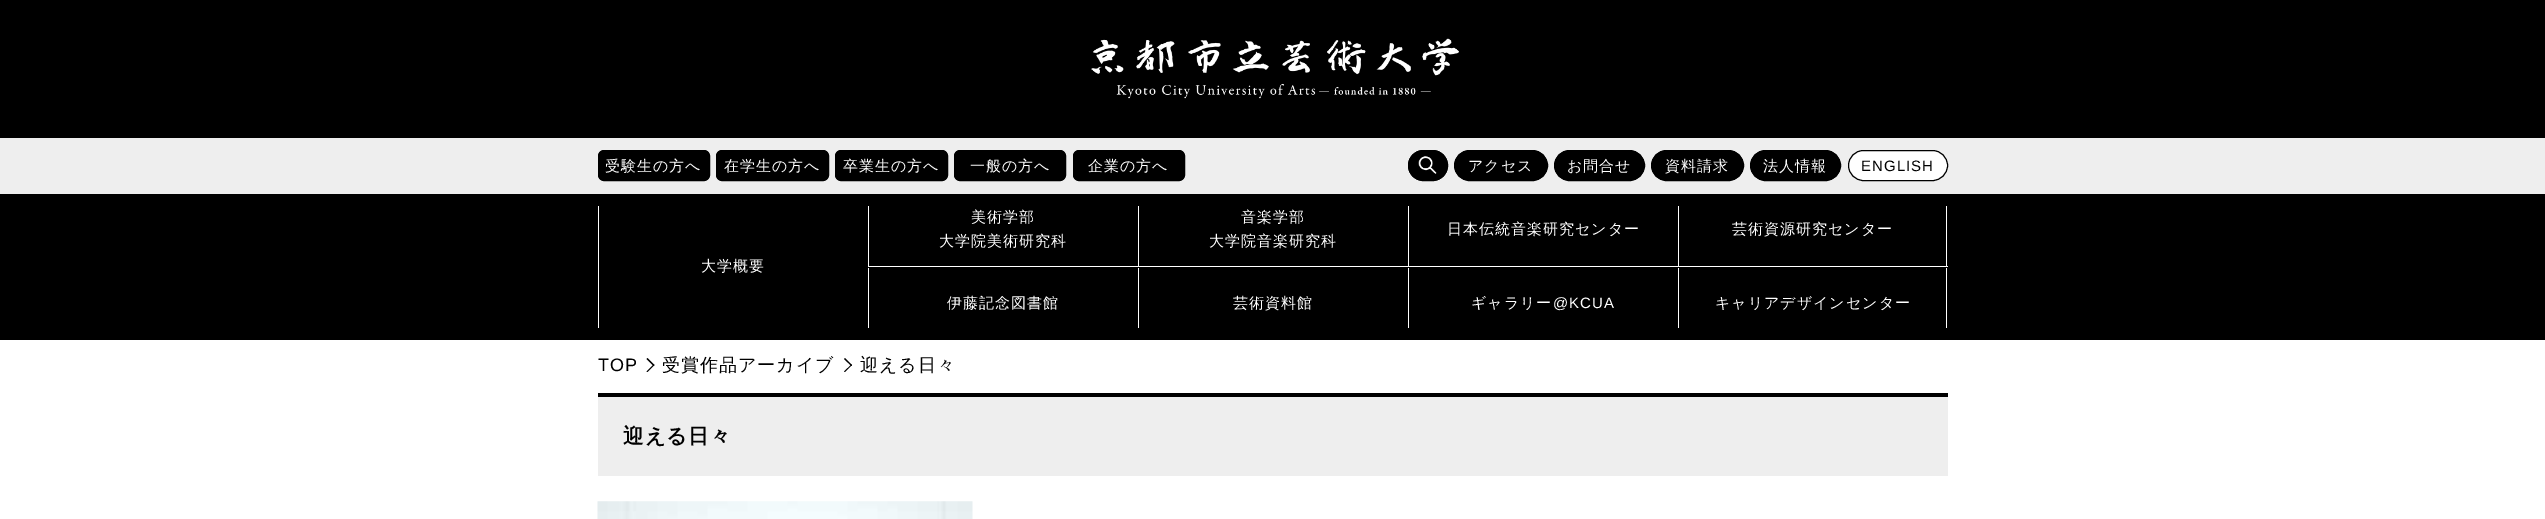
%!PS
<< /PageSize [2545 519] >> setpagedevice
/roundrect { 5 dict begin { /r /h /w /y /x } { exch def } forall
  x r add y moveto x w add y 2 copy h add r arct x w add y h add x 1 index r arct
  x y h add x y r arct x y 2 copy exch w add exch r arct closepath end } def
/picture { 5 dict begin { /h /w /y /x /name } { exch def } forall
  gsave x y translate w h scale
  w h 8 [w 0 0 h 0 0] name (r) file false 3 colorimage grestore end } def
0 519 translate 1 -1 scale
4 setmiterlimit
1 setgray
0 0 2545 519 rectfill
0.933 setgray
0 138 2545 56 rectfill
0 setgray
0 0 2545 138 rectfill
(img1.rgb) 1091 38 368 61 picture
598.5 150.5 111 30 5.5 roundrect gsave fill grestore
stroke
/WenQuanYiZenHei-Medium [15 0 0 -15 0 0] selectfont
1 setgray
605 171 moveto 1 0 (受験生の方へ) ashow
0 setgray
716.5 150.5 112 30 5.5 roundrect gsave fill grestore
stroke
1 setgray
724 171 moveto 1 0 (在学生の方へ) ashow
0 setgray
835.5 150.5 112 30 5.5 roundrect gsave fill grestore
stroke
1 setgray
843 171 moveto 1 0 (卒業生の方へ) ashow
0 setgray
954.5 150.5 111 30 5.5 roundrect gsave fill grestore
stroke
1 setgray
970 171 moveto 1 0 (一般の方へ) ashow
0 setgray
1073.5 150.5 111 30 5.5 roundrect gsave fill grestore
stroke
1 setgray
1088 171 moveto 1 0 (企業の方へ) ashow
0 setgray
1408 150 40 31 15.5 roundrect fill
(img2.rgb) 1418 156 19 18 picture
1408.5 150.5 39 30 15 roundrect stroke
1454.5 150.5 93 30 15 roundrect gsave fill grestore
stroke
1 setgray
1468 171 moveto 1 0 (アクセス) ashow
0 setgray
1554.5 150.5 90 30 15 roundrect gsave fill grestore
stroke
1 setgray
1567 171 moveto 1 0 (お問合せ) ashow
0 setgray
1651.5 150.5 92 30 15 roundrect gsave fill grestore
stroke
1 setgray
1665 171 moveto 1 0 (資料請求) ashow
0 setgray
1750.5 150.5 90 30 15 roundrect gsave fill grestore
stroke
1 setgray
1763 171 moveto 1 0 (法人情報) ashow
1848.5 150.5 99 30 15 roundrect gsave fill grestore
0 setgray
stroke
/LiberationSans-Regular [15 0 0 -15 0 0] selectfont
1861 171 moveto 1 0 (ENGLISH) ashow
0 194 2545 146 rectfill
1 setgray
598 206 1 122 rectfill
/WenQuanYiZenHei-Medium [15 0 0 -15 0 0] selectfont
701 271 moveto 1 0 (大学概要) ashow
868 266 1080 1 rectfill
868 206 1 60 rectfill
971 222 moveto 1 0 (美術学部) ashow
939 246 moveto 1 0 (大学院美術研究科) ashow
1138 206 1 60 rectfill
1241 222 moveto 1 0 (音楽学部) ashow
1209 246 moveto 1 0 (大学院音楽研究科) ashow
1408 206 1 60 rectfill
1447 234 moveto 1 0 (日本伝統音楽研究センター) ashow
1946 206 1 60 rectfill
1678 206 1 60 rectfill
1732 234 moveto 1 0 (芸術資源研究センター) ashow
868 268 1 60 rectfill
947 308 moveto 1 0 (伊藤記念図書館) ashow
1138 268 1 60 rectfill
1233 308 moveto 1 0 (芸術資料館) ashow
1408 268 1 60 rectfill
1471 308 moveto 1 0 (ギャラリー) ashow
/LiberationSans-Regular [15 0 0 -15 0 0] selectfont
1553 308 moveto 1 0 (@KCUA) ashow
1946 268 1 60 rectfill
1678 268 1 60 rectfill
/WenQuanYiZenHei-Medium [15 0 0 -15 0 0] selectfont
1715 308 moveto 1 0 (キャリアデザインセンター) ashow
/LiberationSans-Regular [18 0 0 -18 0 0] selectfont
0 setgray
598 371 moveto 1 0 (TOP) ashow
newpath 647.5 358 moveto 654.5 365 lineto 653.5 366 lineto 646.5 359 lineto closepath fill
newpath 653.5 364.5 moveto 654.5 365 lineto 647.5 372 lineto 646.5 371.5 lineto closepath fill
/WenQuanYiZenHei-Medium [18 0 0 -18 0 0] selectfont
662 371 moveto 1 0 (受賞作品アーカイブ) ashow
newpath 845 358 moveto 852 365 lineto 851.5 366 lineto 844 359 lineto closepath fill
newpath 851.5 364.5 moveto 852 365 lineto 845 372 lineto 844 371.5 lineto closepath fill
860 371 moveto 1 0 (迎える日々) ashow
0.933 setgray
598 397 1350 79 rectfill
0 setgray
598 393 1350 4 rectfill
/WenQuanYiZenHei-Bold [20.5 0 0 -20.5 0 0] selectfont
623 443 moveto 1 0 (迎える日々) ashow
(img3.rgb) 597 501 376 18 picture
showpage
